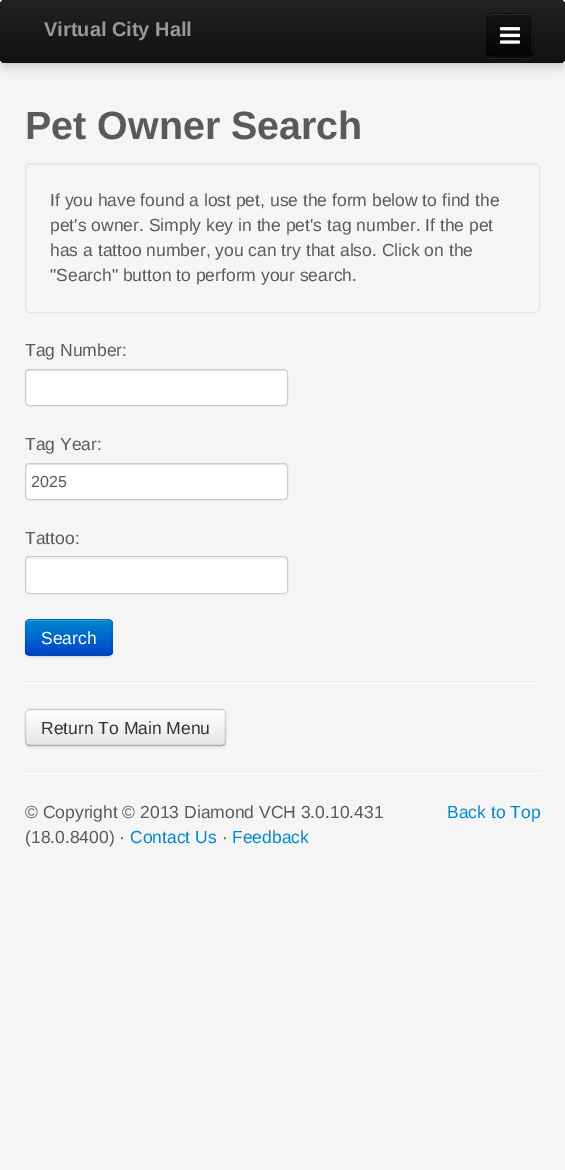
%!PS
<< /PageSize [565 1170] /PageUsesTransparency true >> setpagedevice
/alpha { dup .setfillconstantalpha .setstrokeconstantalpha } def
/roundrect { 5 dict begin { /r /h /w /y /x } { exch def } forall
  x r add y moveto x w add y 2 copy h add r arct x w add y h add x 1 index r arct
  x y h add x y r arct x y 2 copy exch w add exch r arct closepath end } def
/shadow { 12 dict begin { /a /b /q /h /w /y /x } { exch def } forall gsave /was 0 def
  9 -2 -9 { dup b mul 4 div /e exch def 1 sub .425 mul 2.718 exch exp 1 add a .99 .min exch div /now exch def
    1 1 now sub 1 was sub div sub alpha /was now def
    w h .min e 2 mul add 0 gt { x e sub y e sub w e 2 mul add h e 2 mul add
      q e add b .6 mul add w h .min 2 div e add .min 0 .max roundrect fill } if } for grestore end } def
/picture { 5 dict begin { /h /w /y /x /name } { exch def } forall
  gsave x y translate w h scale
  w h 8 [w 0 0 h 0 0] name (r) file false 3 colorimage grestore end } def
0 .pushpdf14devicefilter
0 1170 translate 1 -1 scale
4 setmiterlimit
0.961 setgray
0 0 565 1170 rectfill
0 setgray
0 3 565 62 5 6 0.25 shadow
gsave 0 0 565 63 5 roundrect clip newpath
<< /ShadingType 2 /ColorSpace /DeviceRGB /Coords [283 0 283 63] /Extend [true true] /Function << /FunctionType 2 /Domain [0 1] /C0 [0.133 0.133 0.133] /C1 [0.067 0.067 0.067] /N 1 >> >> shfill grestore
/LiberationSans-Bold [20 0 0 -20 0 0] selectfont
0.6 setgray
44 36 moveto (Virtual City Hall) show
0.141 setgray
newpath 486 17 moveto 486 55 lineto 487 60 494 59 497 59 curveto 523 59 lineto 526 59 533 60 534 55 curveto 534 17 lineto 534 47 lineto 534 57 533 58 522 58 curveto 498 58 lineto 487 58 486 57 486 47 curveto closepath fill
0.055 setgray
486 13 48 45 5 roundrect fill
gsave
486 13 48 45 5 roundrect clip newpath
gsave newpath 486 14 moveto 534 14 lineto 534 56 lineto 486 56 lineto closepath clip newpath
<< /ShadingType 2 /ColorSpace /DeviceRGB /Coords [510 14 510 56] /Extend [true true] /Function << /FunctionType 2 /Domain [0 1] /C0 [0.082 0.082 0.082] /C1 [0.016 0.016 0.016] /N 1 >> >> shfill grestore
grestore
0.1 alpha
1 setgray
newpath 491 15 moveto 530 15 lineto 534 16 532 29 532 31 curveto 532 55 lineto 534 53 533 48 533 46 curveto 533 35 lineto 533 13 538 14 517 14 curveto 498 14 lineto 493 14 488 13 488 19 curveto 488 17 489 15 491 15 curveto closepath fill
0.25 alpha
0 setgray
1.2 setlinewidth
newpath 532 55.5 moveto 531 56.5 530 57 529 57 curveto 491 57 lineto 490 57 489 56.5 488 55.5 curveto stroke
0.1 alpha
newpath 488 55.5 moveto 486 53.5 487 49 487 46.5 curveto 487 35 lineto 487 8.5 483 13 510 13 curveto 537 13 533 8.5 533 35 curveto 533 46.5 lineto 533 49 534 53.5 532 55.5 curveto stroke
1 alpha
(img1.rgb) 500 27 20 17 picture
/LiberationSans-Bold [39.4 0 0 -39.4 0 0] selectfont
0.353 setgray
25 139 moveto (Pet Owner Search) show
0.914 setgray
newpath 30 165 moveto 535 165 lineto 537 165 539 167 539 169 curveto 539 168 lineto 539 166 537 164 535 164 curveto 30 164 lineto 28 164 26 166 26 168 curveto 26 169 lineto 26 167 28 165 30 165 curveto closepath fill
0.89 setgray
1 setlinewidth
25.5 163.5 514 149 4.5 roundrect stroke
/LiberationSans-Regular [17.5 0 0 -17.5 0 0] selectfont
0.353 setgray
50 206 moveto (If you have found a lost pet, use the form below to find the) show
50 231 moveto (pet's owner. Simply key in the pet's tag number. If the pet) show
50 256 moveto (has a tattoo number, you can try that also. Click on the) show
50 281 moveto ("Search" button to perform your search.) show
25 356 moveto (Tag Number:) show
1 setgray
25 369 263 37 4 roundrect fill
0.925 setgray
newpath 29 371 moveto 284 371 lineto 285 371 286 372 286 374 curveto 286 372 lineto 286 371 285 370 284 370 curveto 28 370 lineto 27 370 26 371 26 372 curveto 26 374 lineto 26 372 27 371 29 371 curveto closepath fill
0.8 setgray
25.5 369.5 262 36 3.5 roundrect stroke
0.353 setgray
25 450 moveto (Tag Year:) show
1 setgray
25 463 263 37 4 roundrect fill
0.925 setgray
newpath 29 465 moveto 284 465 lineto 285 465 286 466 286 468 curveto 286 466 lineto 286 465 285 464 284 464 curveto 28 464 lineto 27 464 26 465 26 466 curveto 26 468 lineto 26 466 27 465 29 465 curveto closepath fill
0.8 setgray
25.5 463.5 262 36 3.5 roundrect stroke
/LiberationSans-Regular [16 0 0 -16 0 0] selectfont
0.353 setgray
31 487 moveto (2025) show
/LiberationSans-Regular [17.5 0 0 -17.5 0 0] selectfont
25 544 moveto (Tattoo:) show
1 setgray
25 556 263 38 4 roundrect fill
0.925 setgray
newpath 29 559 moveto 284 559 lineto 285 559 286 560 286 561 curveto 286 559 285 558 284 558 curveto 28 558 lineto 26 559 lineto 26 561 lineto 26 560 27 559 29 559 curveto closepath fill
0.8 setgray
25.5 556.5 262 37 3.5 roundrect stroke
0 setgray
25 620 88 38 5 1 0.05 shadow
0 0.427 0.8 setrgbcolor
25 619 88 37 5 roundrect fill
gsave
25 619 88 37 5 roundrect clip newpath
gsave newpath 25 620 moveto 113 620 lineto 113 655 lineto 25 655 lineto closepath clip newpath
<< /ShadingType 2 /ColorSpace /DeviceRGB /Coords [69 620 69 655] /Extend [true true] /Function << /FunctionType 2 /Domain [0 1] /C0 [0 0.533 0.8] /C1 [0 0.267 0.8] /N 1 >> >> shfill grestore
grestore
0.2 alpha
1 setgray
newpath 30 621 moveto 108 621 lineto 110 621 111 623 111 625 curveto 111 617 99 620 94 620 curveto 43 620 lineto 38 620 26 617 26 625 curveto 26 623 28 621 30 621 curveto closepath fill
0.25 alpha
0 setgray
1.2 setlinewidth
newpath 110.5 654.5 moveto 108 655.5 lineto 29.5 655.5 lineto 27 654.5 lineto stroke
0.1 alpha
newpath 27 654.5 moveto 25 652.5 25.5 649 25.5 646.5 curveto 25.5 637.5 lineto 25.5 617.5 22.5 619.5 43 619.5 curveto 94.5 619.5 lineto 115 619.5 112 617.5 112 637.5 curveto 112 646.5 lineto 112 649 112.5 652.5 110.5 654.5 curveto stroke
1 alpha
1 setgray
41 644 moveto (Search) show
0.933 setgray
25 681 515 1 rectfill
1 setgray
25 683 515 1 rectfill
0 setgray
25 710 201 38 5 1 0.05 shadow
gsave
25 709 201 37 5 roundrect clip newpath
gsave newpath 25 710 moveto 226 710 lineto 226 745 lineto 25 745 lineto closepath clip newpath
<< /ShadingType 2 /ColorSpace /DeviceRGB /Coords [126 710 126 745] /Extend [true true] /Function << /FunctionType 2 /Domain [0 1] /C0 [1 1 1] /C1 [0.902 0.902 0.902] /N 1 >> >> shfill grestore
grestore
0.25 alpha
newpath 224.5 744.5 moveto 223.5 745 222.5 745.5 221 745.5 curveto 30 745.5 lineto 29 745.5 27.5 745 27 744.5 curveto stroke
0.15 alpha
newpath 27 744.5 moveto 26 743.5 25.5 742.5 25.5 741 curveto 25.5 714 lineto 25.5 712.5 26 711.5 27 710.5 curveto 27.5 710 29 709.5 30 709.5 curveto 221 709.5 lineto 222.5 709.5 223.5 710 224.5 710.5 curveto 225 711.5 225.5 712.5 225.5 714 curveto 225.5 741 lineto 225.5 742.5 225 743.5 224.5 744.5 curveto stroke
1 alpha
0.2 setgray
41 734 moveto (Return To Main Menu) show
0.933 setgray
25 771 515 1 rectfill
1 setgray
25 773 515 1 rectfill
0.353 setgray
25 818 moveto (© Copyright © 2013 Diamond VCH 3.0.10.431) show
25 843 moveto (\(18.0.8400\) ·) show
0 0.533 0.8 setrgbcolor
130 843 moveto (Contact Us) show
0.353 setgray
222 843 moveto (·) show
0 0.533 0.8 setrgbcolor
232 843 moveto (Feedback) show
447 818 moveto (Back to Top) show
.poppdf14devicefilter showpage
